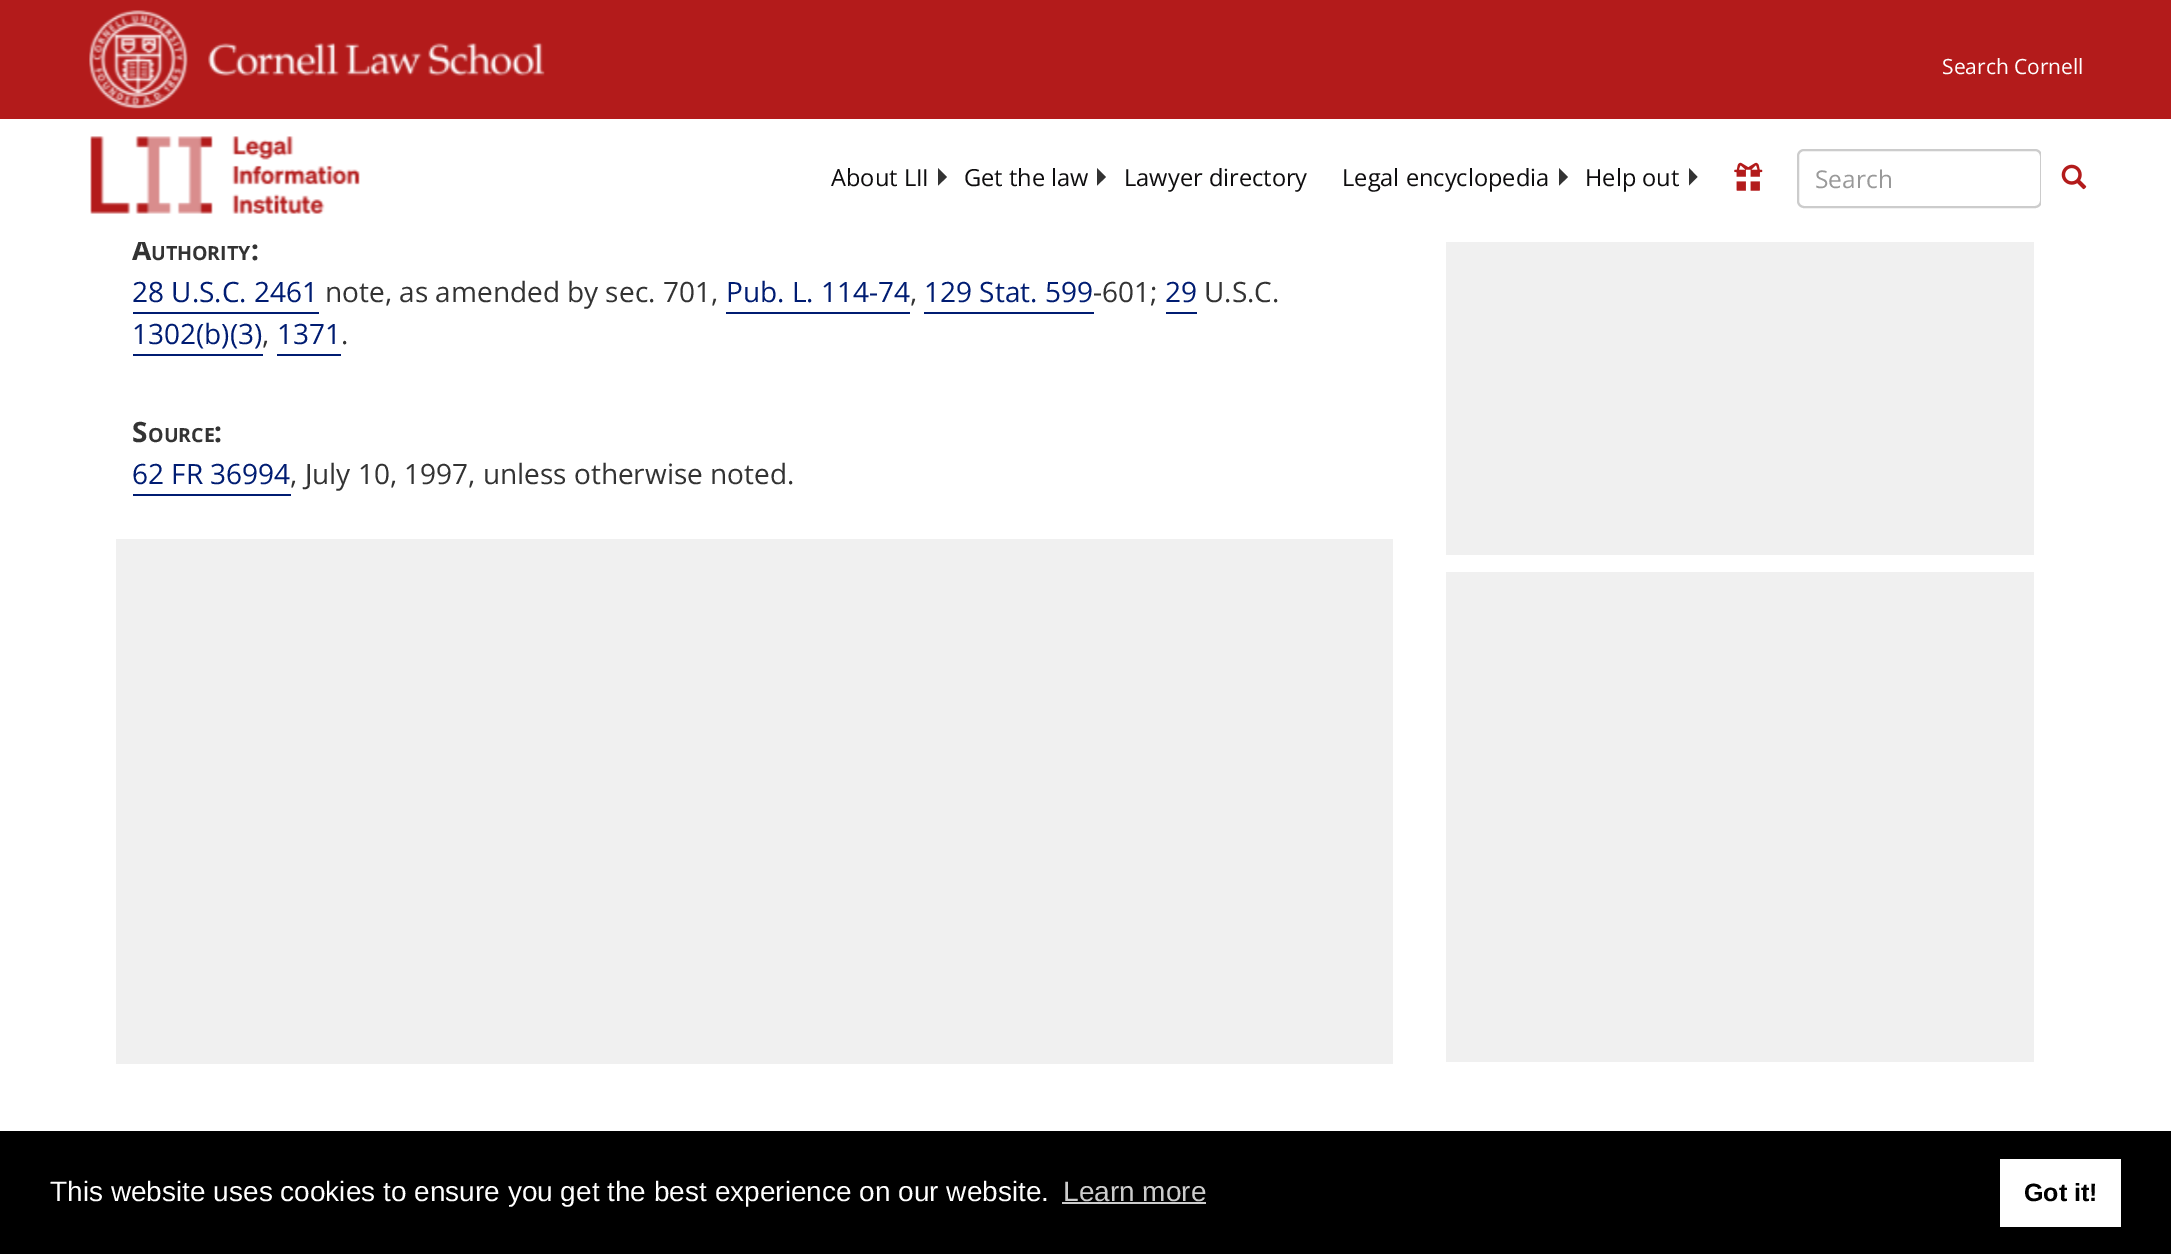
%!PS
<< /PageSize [2171 1254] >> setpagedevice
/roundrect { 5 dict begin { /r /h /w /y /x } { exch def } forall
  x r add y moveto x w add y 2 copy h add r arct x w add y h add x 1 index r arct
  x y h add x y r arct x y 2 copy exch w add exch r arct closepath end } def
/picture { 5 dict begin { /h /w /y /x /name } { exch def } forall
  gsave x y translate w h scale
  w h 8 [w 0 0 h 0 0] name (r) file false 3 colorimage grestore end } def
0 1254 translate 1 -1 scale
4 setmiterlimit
1 setgray
0 0 2171 1254 rectfill
0.702 0.106 0.106 setrgbcolor
0 0 2171 119 rectfill
(img1.rgb) 89 10 99 99 picture
(img2.rgb) 208 42 337 34 picture
/OpenSans-Regular [21 0 0 -21 0 0] selectfont
1 setgray
1942 74 moveto (Search Cornell) show
/OpenSans-Bold [28 0 0 -28 0 0] selectfont
0.2 setgray
132 260 moveto (A) show
1 setgray
138 239 7 3 rectfill
(img3.rgb) 90 136 270 78 picture
/OpenSans-Regular [23.6 0 0 -23.6 0 0] selectfont
0.055 0.051 0.055 setrgbcolor
831 186 moveto (About LII) show
0.2 setgray
newpath 938 185.5 moveto 938 168 lineto 947 177 lineto closepath fill
0.055 0.051 0.055 setrgbcolor
964 186 moveto (Get the law) show
0.2 setgray
newpath 1097 185.5 moveto 1097 168 lineto 1106 177 lineto closepath fill
0.055 0.051 0.055 setrgbcolor
1124 186 moveto (Lawyer directory) show
1342 186 moveto (Legal encyclopedia) show
0.2 setgray
newpath 1559 185.5 moveto 1559 168 lineto 1568 177 lineto closepath fill
0.055 0.051 0.055 setrgbcolor
1585 186 moveto (Help out) show
0.2 setgray
newpath 1689 185.5 moveto 1689 168 lineto 1697.5 177 lineto closepath fill
(img4.rgb) 1734 162 29 29 picture
0.8 setgray
2 setlinewidth
1798 150 243 57 6 roundrect stroke
/OpenSans-Regular [24.5 0 0 -24.5 0 0] selectfont
0.6 setgray
1815 188 moveto (Search) show
1 setgray
newpath 2041 151 moveto 2102 151 lineto 2106 151 2109 154 2109 158 curveto 2109 200 lineto 2109 204 2106 207 2102 207 curveto 2041 207 lineto closepath fill
(img5.rgb) 2061 164 26 26 picture
/OpenSans-Bold [19.5 0 0 -19.5 0 0] selectfont
0.2 setgray
151 260 moveto (UTHORITY) show
/OpenSans-Bold [28 0 0 -28 0 0] selectfont
251 260 moveto (:) show
/OpenSans-Regular [28 0 0 -28 0 0] selectfont
0 0.11 0.447 setrgbcolor
132 302 moveto (28 U.S.C. 2461) show
133 312 186 2 rectfill
0.2 setgray
325 302 moveto (note, as amended by sec. 701,) show
0 0.11 0.447 setrgbcolor
726 302 moveto (Pub. L. 114-74) show
0.2 setgray
910 302 moveto (,) show
0 0.11 0.447 setrgbcolor
726 312 184 2 rectfill
924 312 170 2 rectfill
924 302 moveto (129 Stat. 599) show
0.2 setgray
1093 302 moveto (-601;) show
0 0.11 0.447 setrgbcolor
1165 302 moveto (29) show
1166 312 31 2 rectfill
0.2 setgray
1204 302 moveto (U.S.C.) show
0 0.11 0.447 setrgbcolor
132 344 moveto (1302\(b\)\(3\)) show
0.2 setgray
262 344 moveto (,) show
0 0.11 0.447 setrgbcolor
133 354 130 2 rectfill
277 344 moveto (1371) show
0.2 setgray
341 344 moveto (.) show
0 0.11 0.447 setrgbcolor
277 354 64 2 rectfill
/OpenSans-Bold [28 0 0 -28 0 0] selectfont
0.2 setgray
132 442 moveto (S) show
/OpenSans-Bold [19.5 0 0 -19.5 0 0] selectfont
148 442 moveto (OURCE) show
/OpenSans-Bold [28 0 0 -28 0 0] selectfont
214 442 moveto (:) show
/OpenSans-Regular [28 0 0 -28 0 0] selectfont
0 0.11 0.447 setrgbcolor
132 484 moveto (62 FR 36994) show
0.2 setgray
290 484 moveto (, July 10, 1997, unless otherwise noted.) show
0 0.11 0.447 setrgbcolor
133 494 158 2 rectfill
0.941 setgray
116 539 1277 525 rectfill
1446 242 588 313 rectfill
1446 572 588 490 rectfill
0 setgray
0 1131 2171 123 rectfill
/LiberationSans-Regular [28 0 0 -28 0 0] selectfont
1 setgray
50 1201 moveto (This website uses cookies to ensure you get the best experience on our website.) show
0.8 setgray
1063 1201 moveto (Learn more) show
1062 1202 144 2 rectfill
1 setgray
2000 1159 121 68 rectfill
/LiberationSans-Bold [25 0 0 -25 0 0] selectfont
0 setgray
2024 1201 moveto (Got it!) show
showpage
